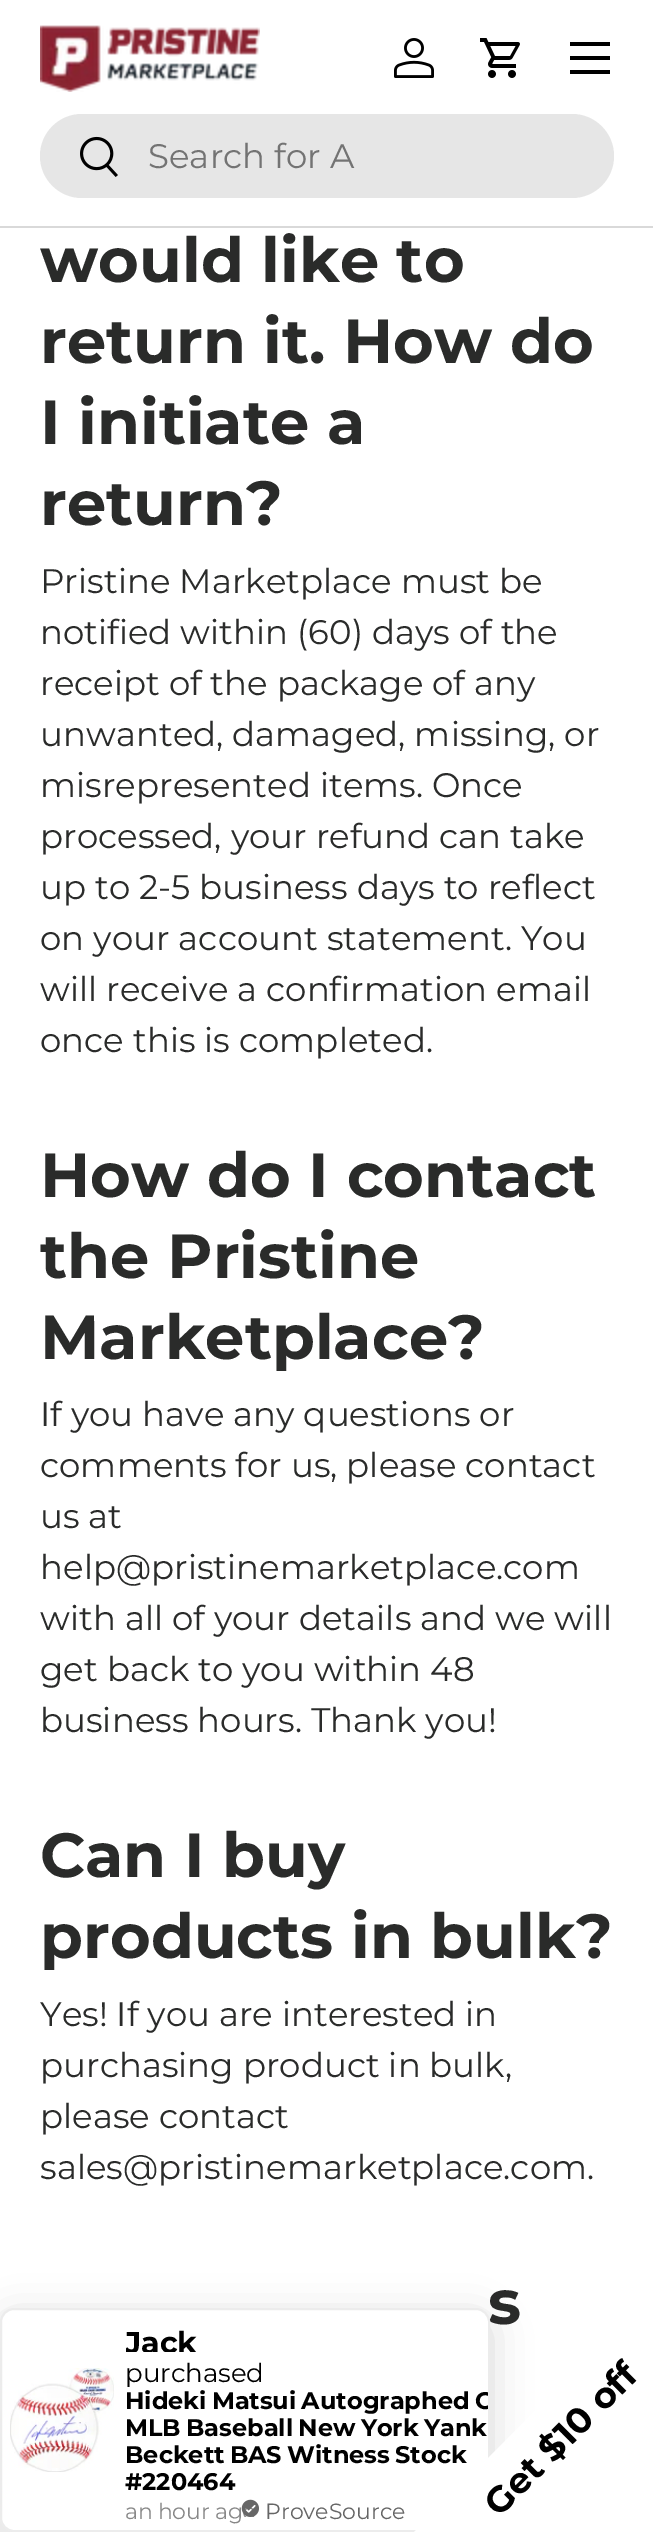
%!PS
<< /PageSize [653 2532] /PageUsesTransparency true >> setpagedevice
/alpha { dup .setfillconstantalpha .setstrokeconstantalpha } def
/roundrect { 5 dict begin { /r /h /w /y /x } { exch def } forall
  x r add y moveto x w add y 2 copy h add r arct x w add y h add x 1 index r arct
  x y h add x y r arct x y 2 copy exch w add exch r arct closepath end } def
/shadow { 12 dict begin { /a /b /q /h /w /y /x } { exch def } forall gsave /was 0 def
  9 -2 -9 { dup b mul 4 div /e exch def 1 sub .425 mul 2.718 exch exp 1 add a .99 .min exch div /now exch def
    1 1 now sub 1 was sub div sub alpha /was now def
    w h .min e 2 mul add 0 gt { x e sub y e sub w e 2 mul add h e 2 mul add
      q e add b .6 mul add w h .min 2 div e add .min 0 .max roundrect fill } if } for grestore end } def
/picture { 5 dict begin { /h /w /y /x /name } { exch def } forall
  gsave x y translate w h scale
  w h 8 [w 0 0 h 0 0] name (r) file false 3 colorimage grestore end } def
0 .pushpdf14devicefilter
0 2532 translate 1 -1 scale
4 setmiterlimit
1 setgray
0 0 653 2532 rectfill
0.851 setgray
0 226 653 2 rectfill
(img1.rgb) 40 25 220 67 picture
(img2.rgb) 394 38 40 40 picture
(img3.rgb) 480 38 40 40 picture
0 setgray
570 42 40 4 rectfill
570 70 40 4 rectfill
570 56 40 4 rectfill
0.902 setgray
40 114 574 84 42 roundrect fill
(img4.rgb) 80 136 38 41 picture
/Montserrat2-Thin [34 0 0 -34 0 0] selectfont
0.451 setgray
148 168 moveto (Search for A) show
/Montserrat-Thin [62.25 0 0 -62.25 0 0] selectfont
0.165 0.169 0.165 setrgbcolor
40 282 moveto (would like to) show
40 363 moveto (return it. How do) show
40 444 moveto (I initiate a) show
40 525 moveto (return?) show
/Montserrat2-Thin [34 0 0 -34 0 0] selectfont
40 593 moveto (Pristine Marketplace must be) show
40 644 moveto (notified within \(60\) days of the) show
40 695 moveto (receipt of the package of any) show
40 746 moveto (unwanted, damaged, missing, or) show
40 797 moveto (misrepresented items. Once) show
40 848 moveto (processed, your refund can take) show
40 899 moveto (up to 2-5 business days to reflect) show
40 950 moveto (on your account statement. You) show
40 1001 moveto (will receive a confirmation email) show
40 1052 moveto (once this is completed.) show
/Montserrat-Thin [62.25 0 0 -62.25 0 0] selectfont
40 1197 moveto (How do I contact) show
40 1278 moveto (the Pristine) show
40 1359 moveto (Marketplace?) show
/Montserrat2-Thin [34 0 0 -34 0 0] selectfont
40 1426 moveto (If you have any questions or) show
40 1477 moveto (comments for us, please contact) show
40 1528 moveto (us at) show
40 1579 moveto (help@pristinemarketplace.com) show
40 1630 moveto (with all of your details and we will) show
40 1681 moveto (get back to you within 48) show
40 1732 moveto (business hours. Thank you!) show
/Montserrat-Thin [62.25 0 0 -62.25 0 0] selectfont
40 1877 moveto (Can I buy) show
40 1958 moveto (products in bulk?) show
/Montserrat2-Thin [34 0 0 -34 0 0] selectfont
40 2026 moveto (Yes! If you are interested in) show
40 2077 moveto (purchasing product in bulk,) show
40 2128 moveto (please contact) show
40 2179 moveto (sales@pristinemarketplace.com.) show
/Montserrat-Thin [62.25 0 0 -62.25 0 0] selectfont
488 2324 moveto (s) show
0 setgray
0 2318 490 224 14 20 0.15 shadow
1 setgray
1 2309 488 222 13 roundrect gsave fill grestore
0.925 setgray
2 setlinewidth
stroke
(img5.rgb) 10 2368 104 104 picture
gsave
126 2318 354 34 rectclip
/Montserrat-Thin [30 0 0 -30 0 0] selectfont
0 setgray
125 2353 moveto (Jack) show
grestore
/Montserrat2-Thin [26 0 0 -26 0 0] selectfont
0 setgray
125 2382 moveto (purchased) show
gsave
2 2310 486 220 12 roundrect clip newpath
/Montserrat-Thin [24 0 0 -24 0 0] selectfont
125 2409 moveto -1.5 0 32 (Hideki Matsui Autographed O) widthshow
grestore
/Montserrat-Thin [24 0 0 -24 0 0] selectfont
125 2436 moveto -1.5 0 32 (MLB Baseball New York Yank) widthshow
125 2463 moveto -1.5 0 32 (Beckett BAS Witness Stock) widthshow
125 2490 moveto (#220464) show
/Montserrat2-Thin [22 0 0 -22 0 0] selectfont
0.533 setgray
125 2519 moveto -1 0 32 (an hour ag) widthshow
(img6.rgb) 241 2499 18 18 picture
0.4 setgray
265 2519 moveto (ProveSource) show
1 setgray
newpath 414 2532 moveto 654 2532 lineto 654 2292 lineto closepath fill
/Montserrat-Thin [36 0 0 -36 0 0] selectfont
0 setgray
gsave 499 2518 translate -45 rotate 0 0 moveto (Get $10 off) show grestore
.poppdf14devicefilter showpage
